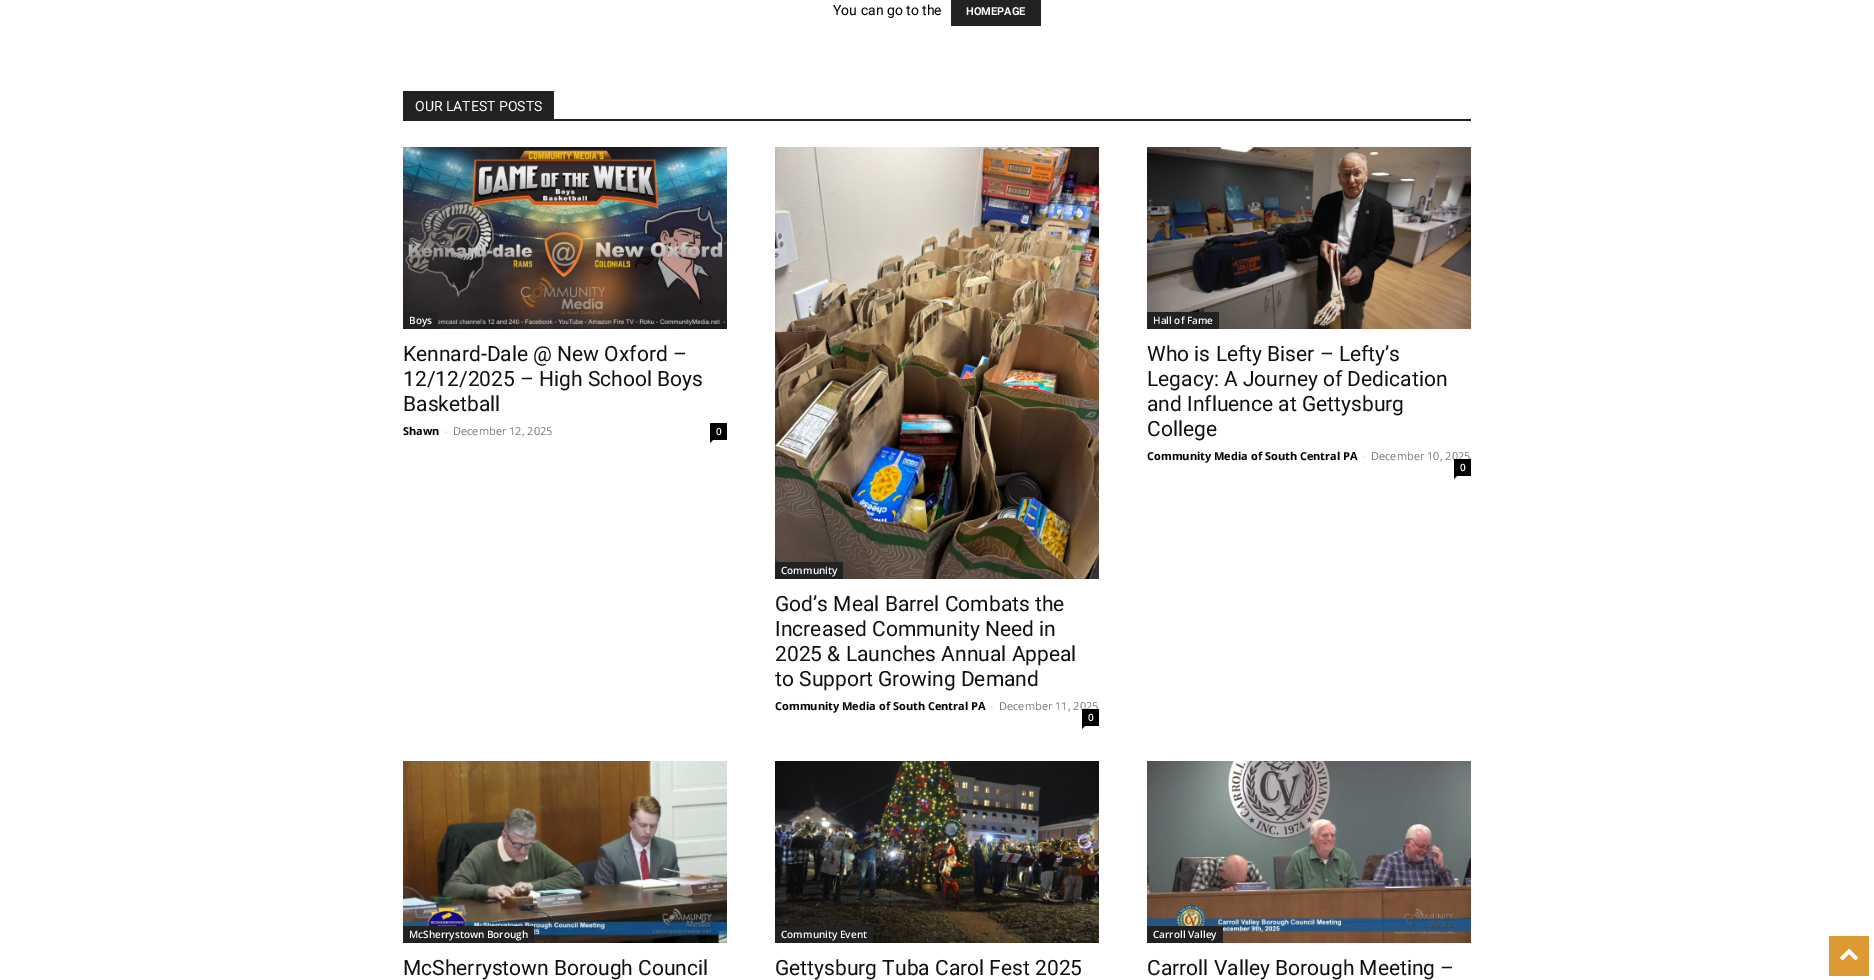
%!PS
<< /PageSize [1874 980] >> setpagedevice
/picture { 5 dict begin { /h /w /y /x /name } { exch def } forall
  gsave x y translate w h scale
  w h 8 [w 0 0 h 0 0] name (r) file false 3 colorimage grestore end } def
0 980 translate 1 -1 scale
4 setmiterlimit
1 setgray
0 0 1874 980 rectfill
/Roboto-Regular [14 0 0 -14 0 0] selectfont
0 setgray
833 15 moveto (You can go to the) show
0.133 setgray
951 0 90 26 rectfill
/Roboto-Bold [11 0 0 -11 0 0] selectfont
1 setgray
966 15 moveto (HOMEPAGE) show
0.133 setgray
403 119 1068 2 rectfill
403 91 151 28 rectfill
/Roboto-Regular [14 0 0 -14 0 0] selectfont
1 setgray
415 111 moveto (OUR LATEST POSTS) show
(img1.rgb) 403 147 324 182 picture
0.133 setgray
403 312 35 17 rectfill
/OpenSans-SemiBold [10 0 0 -10 0 0] selectfont
1 setgray
409 324 moveto (Boys) show
/Roboto-Regular [21 0 0 -21 0 0] selectfont
0.067 setgray
403 361 moveto (Kennard-Dale @ New Oxford –) show
403 386 moveto (12/12/2025 – High School Boys) show
403 411 moveto (Basketball) show
/OpenSans-Bold [11 0 0 -11 0 0] selectfont
0 setgray
403 435 moveto (Shawn) show
/OpenSans-Regular [11 0 0 -11 0 0] selectfont
0.8 setgray
444 435 moveto (-) show
0.463 setgray
453 435 moveto (December 12, 2025) show
0 setgray
710 423 17 17 rectfill
/OpenSans-SemiBold [10 0 0 -10 0 0] selectfont
1 setgray
716 435 moveto (0) show
0 setgray
newpath 710 440 moveto 713 440 lineto 710 443 lineto closepath fill
(img2.rgb) 1147 147 324 182 picture
0.133 setgray
1147 312 72 17 rectfill
1 setgray
1153 324 moveto (Hall of Fame) show
/Roboto-Regular [21 0 0 -21 0 0] selectfont
0.067 setgray
1147 361 moveto (Who is Lefty Biser – Lefty’s) show
1147 386 moveto (Legacy: A Journey of Dedication) show
1147 411 moveto (and Influence at Gettysburg) show
1147 436 moveto (College) show
/OpenSans-Bold [11 0 0 -11 0 0] selectfont
0 setgray
1147 460 moveto (Community Media of South Central PA) show
/OpenSans-Regular [11 0 0 -11 0 0] selectfont
0.8 setgray
1362 460 moveto (-) show
0.463 setgray
1371 460 moveto (December 10, 2025) show
0 setgray
1454 459 17 17 rectfill
/OpenSans-SemiBold [10 0 0 -10 0 0] selectfont
1 setgray
1460 471 moveto (0) show
0 setgray
newpath 1454 476 moveto 1457 476 lineto 1454 479 lineto closepath fill
(img3.rgb) 775 147 324 432 picture
0.133 setgray
775 562 68 17 rectfill
1 setgray
781 574 moveto (Community) show
/Roboto-Regular [21 0 0 -21 0 0] selectfont
0.067 setgray
775 611 moveto (God’s Meal Barrel Combats the) show
775 636 moveto (Increased Community Need in) show
775 661 moveto (2025 & Launches Annual Appeal) show
775 686 moveto (to Support Growing Demand) show
/OpenSans-Bold [11 0 0 -11 0 0] selectfont
0 setgray
775 710 moveto (Community Media of South Central PA) show
/OpenSans-Regular [11 0 0 -11 0 0] selectfont
0.8 setgray
990 710 moveto (-) show
0.463 setgray
999 710 moveto (December 11, 2025) show
0 setgray
1082 709 17 17 rectfill
/OpenSans-SemiBold [10 0 0 -10 0 0] selectfont
1 setgray
1088 721 moveto (0) show
0 setgray
newpath 1082 726 moveto 1085 726 lineto 1082 729 lineto closepath fill
(img4.rgb) 403 761 324 182 picture
0.133 setgray
403 926 131 17 rectfill
1 setgray
409 938 moveto (McSherrystown Borough) show
/Roboto-Regular [21 0 0 -21 0 0] selectfont
0.067 setgray
403 975 moveto (McSherrystown Borough Council) show
(img5.rgb) 775 761 324 182 picture
0.133 setgray
775 926 98 17 rectfill
/OpenSans-SemiBold [10 0 0 -10 0 0] selectfont
1 setgray
781 938 moveto (Community Event) show
/Roboto-Regular [21 0 0 -21 0 0] selectfont
0.067 setgray
775 975 moveto (Gettysburg Tuba Carol Fest 2025) show
(img6.rgb) 1147 761 324 182 picture
0.133 setgray
1147 926 76 17 rectfill
/OpenSans-SemiBold [10 0 0 -10 0 0] selectfont
1 setgray
1153 938 moveto (Carroll Valley) show
/Roboto-Regular [21 0 0 -21 0 0] selectfont
0.067 setgray
1147 975 moveto (Carroll Valley Borough Meeting –) show
0.867 0.6 0.2 setrgbcolor
1829 936 40 40 rectfill
(img7.rgb) 1840 948 18 13 picture
showpage
